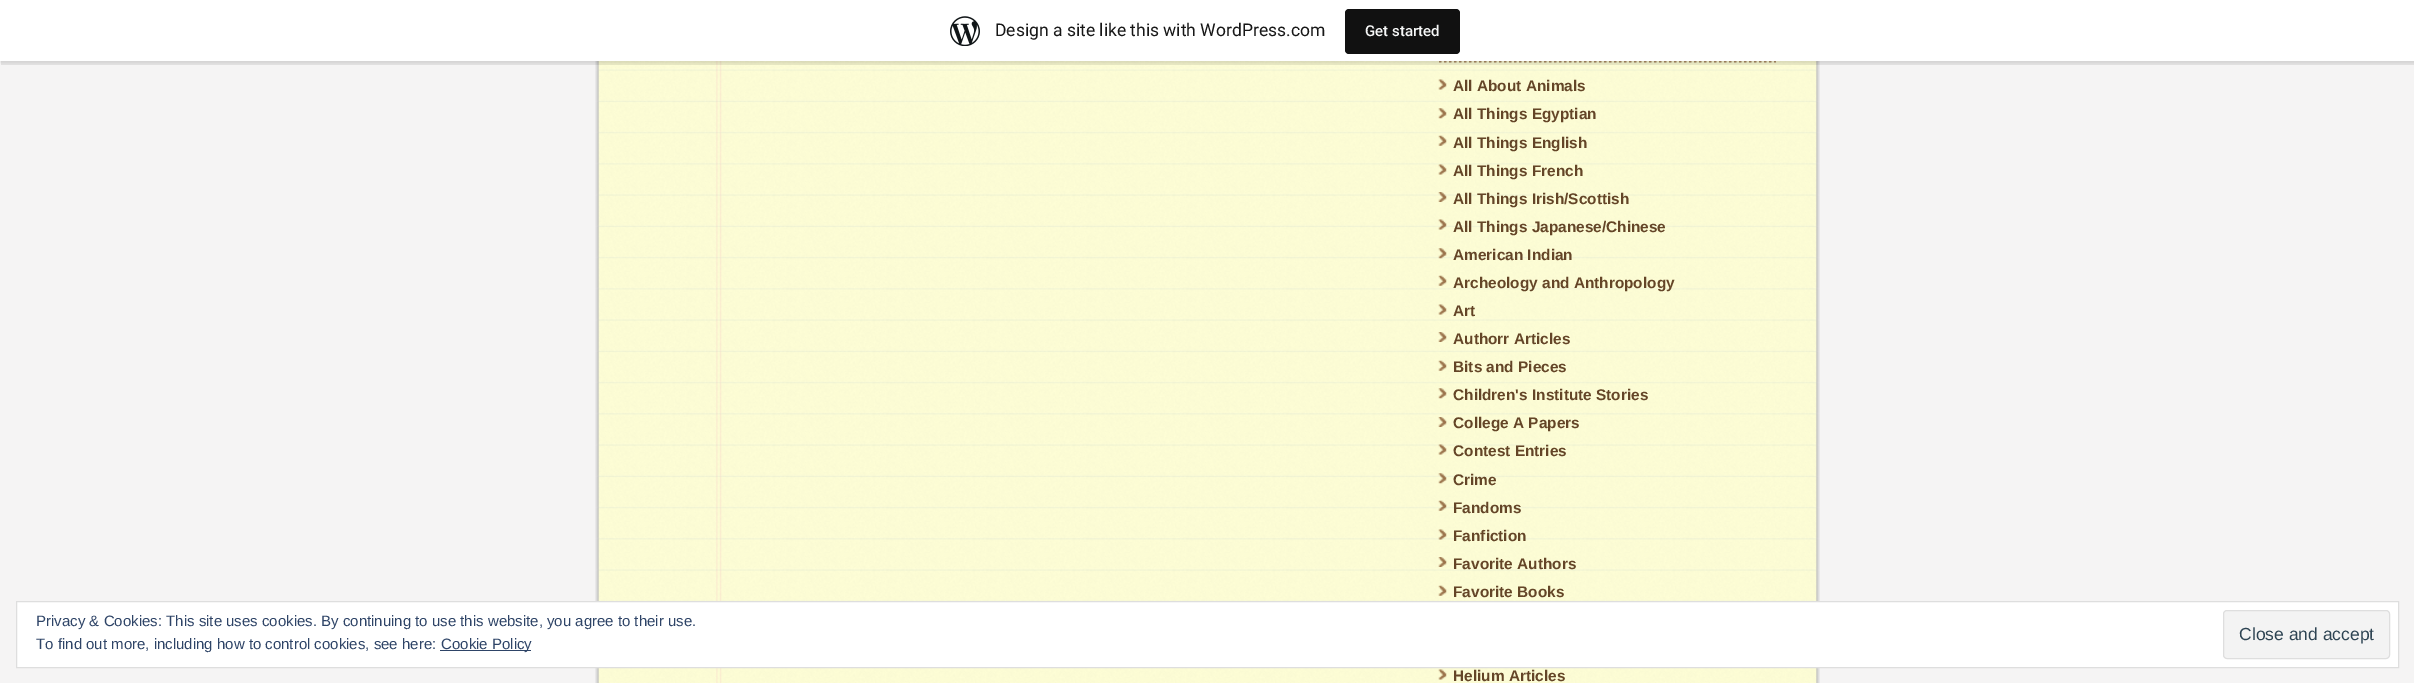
%!PS
<< /PageSize [2414 683] /PageUsesTransparency true >> setpagedevice
/alpha { dup .setfillconstantalpha .setstrokeconstantalpha } def
/roundrect { 5 dict begin { /r /h /w /y /x } { exch def } forall
  x r add y moveto x w add y 2 copy h add r arct x w add y h add x 1 index r arct
  x y h add x y r arct x y 2 copy exch w add exch r arct closepath end } def
/shadow { 12 dict begin { /a /b /q /h /w /y /x } { exch def } forall gsave /was 0 def
  9 -2 -9 { dup b mul 4 div /e exch def 1 sub .425 mul 2.718 exch exp 1 add a .99 .min exch div /now exch def
    1 1 now sub 1 was sub div sub alpha /was now def
    w h .min e 2 mul add 0 gt { x e sub y e sub w e 2 mul add h e 2 mul add
      q e add b .6 mul add w h .min 2 div e add .min 0 .max roundrect fill } if } for grestore end } def
/picture { 5 dict begin { /h /w /y /x /name } { exch def } forall
  gsave x y translate w h scale
  w h 8 [w 0 0 h 0 0] name (r) file false 3 colorimage grestore end } def
0 .pushpdf14devicefilter
0 683 translate 1 -1 scale
4 setmiterlimit
0.961 0.957 0.957 setrgbcolor
0 0 2414 683 rectfill
(img2.rgb) 595 61 1225 622 picture
0.8 alpha
0.604 0.447 0.29 setrgbcolor
2.5 setlinewidth
[2.5 2.5] 0 setdash
newpath 1439 61 moveto 1776 61 lineto stroke
1 alpha
0 setgray
0 1 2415 62 0 1 0.05 shadow
0.08 alpha
newpath 1 61 moveto 1 65 lineto 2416 65 lineto 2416 4 lineto 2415 4 lineto 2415 61 lineto closepath fill
1 alpha
1 setgray
0 0 2414 61 rectfill
(img1.rgb) 950 16 30 30 picture
/Roboto-Regular [17.5 0 0 -17.5 0 0] selectfont
0.09 setgray
995 36 moveto (Design a site like this with WordPress.com) show
0.067 setgray
1345 9 115 45 4 roundrect fill
/Roboto-Medium [15 0 0 -15 0 0] selectfont
0.965 0.969 0.969 setrgbcolor
1365 36 moveto (Get started) show
(img3.rgb) 1438 79 9 11 picture
/LiberationSans-Bold [15.4 0 0 -15.4 0 0] selectfont
0.392 0.271 0.153 setrgbcolor
1453 91 moveto (All About Animals) show
(img4.rgb) 1438 108 9 11 picture
1453 119 moveto (All Things Egyptian) show
(img5.rgb) 1438 135 9 11 picture
1453 148 moveto (All Things English) show
(img6.rgb) 1438 164 9 11 picture
1453 176 moveto (All Things French) show
(img7.rgb) 1438 192 9 10 picture
1453 204 moveto (All Things Irish/Scottish) show
(img8.rgb) 1438 219 9 11 picture
1453 232 moveto (All Things Japanese/Chinese) show
(img9.rgb) 1438 248 9 11 picture
1453 260 moveto (American Indian) show
(img10.rgb) 1438 275 9 11 picture
1453 288 moveto (Archeology and Anthropology) show
(img11.rgb) 1438 304 9 11 picture
1453 316 moveto (Art) show
(img12.rgb) 1438 332 9 10 picture
1453 344 moveto (Authorr Articles) show
(img13.rgb) 1438 360 9 11 picture
1453 372 moveto (Bits and Pieces) show
(img14.rgb) 1438 388 9 11 picture
1453 400 moveto (Children's Institute Stories) show
(img15.rgb) 1438 417 9 10 picture
1453 428 moveto (College A Papers) show
(img16.rgb) 1438 444 9 11 picture
1453 456 moveto (Contest Entries) show
(img17.rgb) 1438 473 9 11 picture
1453 485 moveto (Crime) show
(img18.rgb) 1438 500 9 11 picture
1453 513 moveto (Fandoms) show
(img19.rgb) 1438 529 9 11 picture
1453 541 moveto (Fanfiction) show
(img20.rgb) 1438 557 9 10 picture
1453 569 moveto (Favorite Authors) show
(img21.rgb) 1438 585 9 11 picture
1453 597 moveto (Favorite Books) show
(img22.rgb) 1438 669 9 11 picture
1453 681 moveto (Helium Articles) show
1 setgray
newpath 16.5 601.5 moveto 2398.5 601.5 lineto 2398.5 667.5 lineto 16.5 667.5 lineto closepath gsave fill grestore
0.871 setgray
1 setlinewidth
[] 0 setdash
stroke
/LiberationSans-Regular [15 0 0 -15 0 0] selectfont
0.18 0.267 0.404 setrgbcolor
36 626 moveto (Privacy & Cookies: This site uses cookies. By continuing to use this website, you agree to their use.) show
0.953 setgray
2223.5 610.5 166 48 3.5 roundrect gsave fill grestore
0.871 setgray
stroke
/LiberationSans-Regular [17.5 0 0 -17.5 0 0] selectfont
0.18 0.267 0.325 setrgbcolor
2239 640 moveto (Close and accept) show
/LiberationSans-Regular [15 0 0 -15 0 0] selectfont
0.18 0.267 0.404 setrgbcolor
36 649 moveto (To find out more, including how to control cookies, see here:) show
440 650 91 1 rectfill
441 649 moveto (Cookie Policy) show
.poppdf14devicefilter showpage
